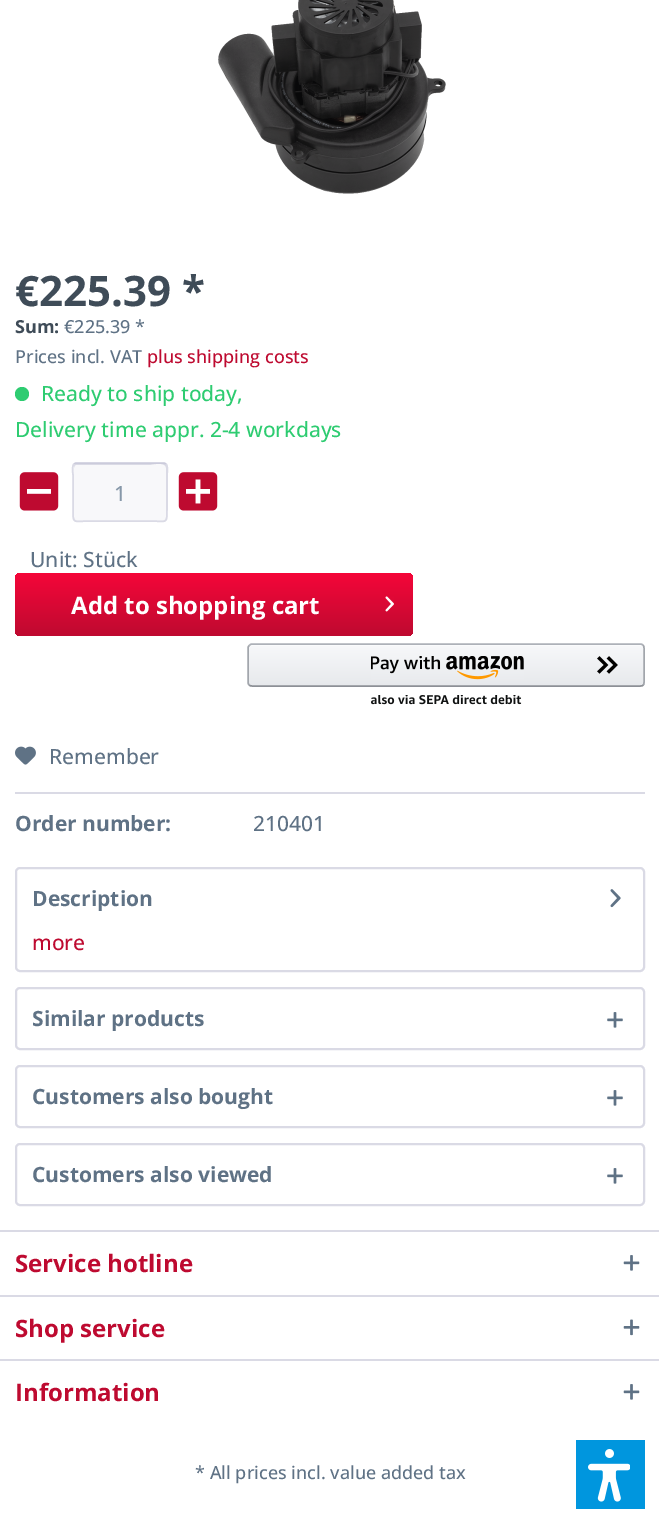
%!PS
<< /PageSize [659 1523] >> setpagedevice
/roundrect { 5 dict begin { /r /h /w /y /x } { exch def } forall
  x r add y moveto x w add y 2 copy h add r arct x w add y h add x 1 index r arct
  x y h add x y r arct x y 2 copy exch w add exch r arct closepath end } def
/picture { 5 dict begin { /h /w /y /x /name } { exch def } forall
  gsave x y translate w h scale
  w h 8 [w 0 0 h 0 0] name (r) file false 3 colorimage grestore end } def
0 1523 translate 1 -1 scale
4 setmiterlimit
1 setgray
0 0 659 1523 rectfill
(img1.rgb) 218 0 228 194 picture
/OpenSans-Bold [42 0 0 -42 0 0] selectfont
0.247 0.298 0.345 setrgbcolor
15 306 moveto (€225.39 *) show
/OpenSans-Bold [18 0 0 -18 0 0] selectfont
15 333 moveto (Sum:) show
/OpenSans-Medium [18 0 0 -18 0 0] selectfont
0.373 0.447 0.522 setrgbcolor
64 333 moveto (€225.39 *) show
15 363 moveto (Prices incl. VAT) show
0.745 0.039 0.188 setrgbcolor
147 363 moveto (plus shipping costs) show
0.18 0.8 0.443 setrgbcolor
newpath 22 394 7 0 360 arc closepath fill
/OpenSans-Medium [21 0 0 -21 0 0] selectfont
41 401 moveto (Ready to ship today,) show
15 437 moveto (Delivery time appr. 2-4 workdays) show
(img2.rgb) 19 472 40 39 picture
0.973 0.973 0.98 setrgbcolor
72 462 96 60 5 roundrect fill
0.855 0.855 0.898 setrgbcolor
newpath 76 465 moveto 149 465 lineto 150 465 166 461 166 468 curveto 166 520 lineto 167 520 167 519 167 518 curveto 167 467 lineto 167 465 166 464 164 464 curveto 77 464 lineto 75 464 74 465 74 467 curveto 74 468 lineto 74 466 75 465 76 465 curveto closepath fill
0.796 0.796 0.859 setrgbcolor
1.5 setlinewidth
newpath 74 464 moveto 76 463 lineto 164 463 lineto 166 464 lineto stroke
0.855 0.855 0.898 setrgbcolor
newpath 166 464 moveto 168.5 466.5 167 474 167 475 curveto 167 509 lineto 167 525 167 521 149 521 curveto 91 521 lineto 73 521 73 525 73 509 curveto 73 475 lineto 73 474 71.5 466.5 74 464 curveto stroke
0.529 0.596 0.663 setrgbcolor
114 501 moveto (1) show
(img3.rgb) 178 472 40 39 picture
0.373 0.447 0.522 setrgbcolor
30 567 moveto (Unit: Stück) show
gsave 15 573 398 63 5 roundrect clip newpath
<< /ShadingType 2 /ColorSpace /DeviceRGB /Coords [214 573 214 636] /Extend [true true] /Function << /FunctionType 2 /Domain [0 1] /C0 [0.961 0.024 0.224] /C1 [0.745 0.039 0.188] /N 1 >> >> shfill grestore
/OpenSans-Bold [24 0 0 -24 0 0] selectfont
1 setgray
71 614 moveto (Add to shopping cart) show
(img4.rgb) 385 596 9 16 picture
gsave
248 644 397 43 5 roundrect clip newpath
gsave newpath 248 645 moveto 645 645 lineto 645 686 lineto 248 686 lineto closepath clip newpath
<< /ShadingType 2 /ColorSpace /DeviceRGB /Coords [446 645 446 686] /Extend [true true] /Function << /FunctionType 2 /Domain [0 1] /C0 [0.969 0.973 0.98] /C1 [0.906 0.914 0.925] /N 1 >> >> shfill grestore
grestore
0.98 0.984 0.988 setrgbcolor
newpath 252 646 moveto 640 646 lineto 642 646 644 648 644 650 curveto 644 648 lineto 644 646 643 645 641 645 curveto 252 645 lineto 250 645 249 646 249 648 curveto 249 650 lineto 249 648 250 646 252 646 curveto closepath fill
0.678 0.694 0.722 setrgbcolor
newpath 249.5 645.5 moveto 250 644.5 251 644 252 644 curveto 640.5 644 lineto 641.5 644 642.5 644.5 643 645.5 curveto stroke
0.635 0.651 0.675 setrgbcolor
newpath 643 645.5 moveto 644 646 644 647 644 648 curveto 644 682.5 lineto 644 683.5 644 684.5 643 685 curveto stroke
0.553 0.565 0.588 setrgbcolor
newpath 643 685 moveto 642.5 686 641.5 686 640.5 686 curveto 252 686 lineto 251 686 250 686 249.5 685 curveto stroke
0.635 0.651 0.675 setrgbcolor
newpath 249.5 685 moveto 248.5 684.5 248 683.5 248 682.5 curveto 248 648 lineto 248 647 248.5 646 249.5 645.5 curveto stroke
(img5.rgb) 371 656 153 24 picture
(img6.rgb) 597 656 21 18 picture
(img7.rgb) 371 695 151 10 picture
0.855 0.855 0.898 setrgbcolor
15 792 630 2 rectfill
(img8.rgb) 15 746 21 19 picture
/OpenSans-Medium [21 0 0 -21 0 0] selectfont
0.373 0.447 0.522 setrgbcolor
49 764 moveto (Remember) show
/OpenSans-Bold [21 0 0 -21 0 0] selectfont
15 831 moveto (Order number:) show
/OpenSans-Medium [21 0 0 -21 0 0] selectfont
253 831 moveto (210401) show
0.855 0.855 0.898 setrgbcolor
2 setlinewidth
16 868 628 103 4 roundrect stroke
/OpenSans-Bold [21 0 0 -21 0 0] selectfont
0.373 0.447 0.522 setrgbcolor
32 906 moveto (Description) show
(img9.rgb) 610 889 11 19 picture
/OpenSans-Medium [21 0 0 -21 0 0] selectfont
0.745 0.039 0.188 setrgbcolor
32 950 moveto (more) show
0.855 0.855 0.898 setrgbcolor
16 988 628 61 4 roundrect stroke
/OpenSans-Bold [21 0 0 -21 0 0] selectfont
0.373 0.447 0.522 setrgbcolor
32 1026 moveto (Similar products) show
(img10.rgb) 607 1012 16 16 picture
0.855 0.855 0.898 setrgbcolor
16 1066 628 61 4 roundrect stroke
0.373 0.447 0.522 setrgbcolor
32 1104 moveto (Customers also bought) show
(img10.rgb) 607 1090 16 16 picture
0.855 0.855 0.898 setrgbcolor
16 1144 628 61 4 roundrect stroke
0.373 0.447 0.522 setrgbcolor
32 1182 moveto (Customers also viewed) show
(img10.rgb) 607 1168 16 16 picture
0.855 0.855 0.898 setrgbcolor
0 1230 659 2 rectfill
/OpenSans-Bold [24 0 0 -24 0 0] selectfont
0.745 0.039 0.188 setrgbcolor
15 1272 moveto (Service hotline) show
(img11.rgb) 623 1255 17 16 picture
0.855 0.855 0.898 setrgbcolor
0 1295 659 2 rectfill
0.745 0.039 0.188 setrgbcolor
15 1337 moveto (Shop service) show
(img12.rgb) 623 1319 17 17 picture
0.855 0.855 0.898 setrgbcolor
0 1359 659 2 rectfill
0.745 0.039 0.188 setrgbcolor
15 1401 moveto (Information) show
(img11.rgb) 623 1384 17 16 picture
/OpenSans-Medium [18 0 0 -18 0 0] selectfont
0.373 0.447 0.522 setrgbcolor
195 1479 moveto (* All prices incl. value added tax) show
0 0.588 0.871 setrgbcolor
576 1440 69 69 rectfill
(img13.rgb) 588 1449 42 53 picture
showpage
